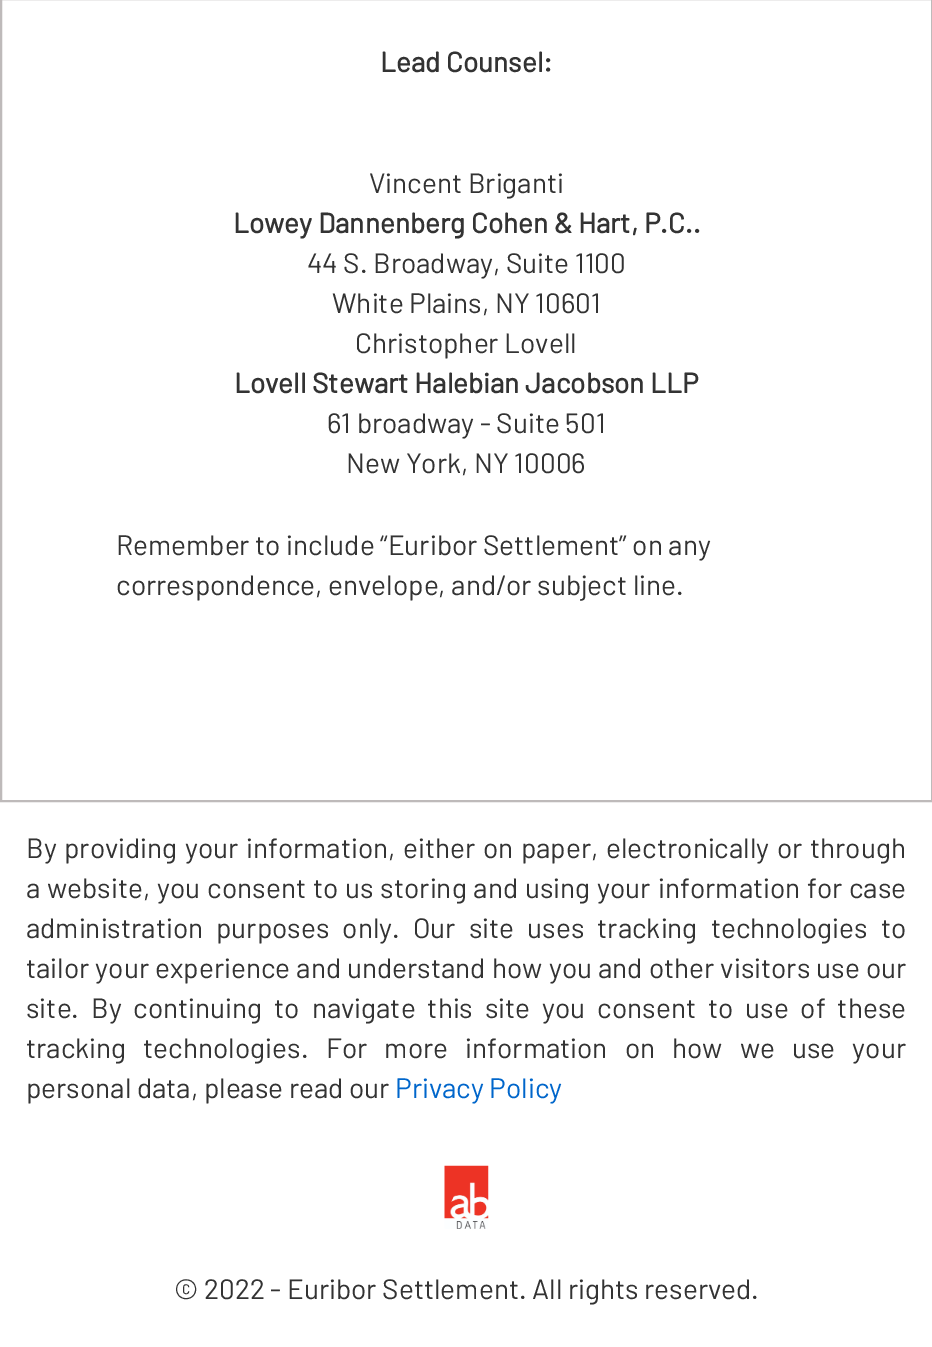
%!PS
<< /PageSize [932 1347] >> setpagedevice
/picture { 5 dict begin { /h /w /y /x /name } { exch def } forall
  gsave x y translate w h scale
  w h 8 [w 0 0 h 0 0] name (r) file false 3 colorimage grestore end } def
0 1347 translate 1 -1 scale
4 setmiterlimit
1 setgray
0 0 932 1347 rectfill
0.745 0.729 0.729 setrgbcolor
2 setlinewidth
1 -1 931 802 rectstroke
/Barlow-Bold [28 0 0 -28 0 0] selectfont
0.2 setgray
380 72 moveto (Lead Counsel:) show
/Barlow-Regular [28 0 0 -28 0 0] selectfont
369 193 moveto (Vincent Briganti) show
/Barlow-Bold [28 0 0 -28 0 0] selectfont
233 233 moveto (Lowey Dannenberg Cohen & Hart, P.C..) show
/Barlow-Regular [28 0 0 -28 0 0] selectfont
307 273 moveto (44 S. Broadway, Suite 1100) show
332 313 moveto (White Plains, NY 10601) show
355 353 moveto (Christopher Lovell) show
/Barlow-Bold [28 0 0 -28 0 0] selectfont
234 393 moveto (Lovell Stewart Halebian Jacobson LLP) show
/Barlow-Regular [28 0 0 -28 0 0] selectfont
327 433 moveto (61 broadway - Suite 501) show
346 473 moveto (New York, NY 10006) show
116 555 moveto (Remember to include “Euribor Settlement” on any) show
116 595 moveto (correspondence, envelope, and/or subject line.) show
26 858 moveto 2 0 32 (By providing your information, either on paper, electronically or through) widthshow
26 898 moveto 1.25 0 32 (a website, you consent to us storing and using your) widthshow
658 898 moveto 1 0 32 (information for case) widthshow
26 938 moveto 7.5 0 32 (administration purposes only. Our site uses tracking technologies to) widthshow
26 978 moveto 0.5 0 32 (tailor your experience and understand) widthshow
492 978 moveto 0.5 0 32 (how you and other visitors use our) widthshow
26 1018 moveto 6.25 0 32 (site. By continuing to navigate this site you consent to use of these) widthshow
26 1058 moveto 11.5 0 32 (tracking technologies.) widthshow
326 1058 moveto 11.5 0 32 (For more information on how we use your) widthshow
26 1098 moveto (personal data, please read our) show
0 0.4 0.796 setrgbcolor
395 1098 moveto (Privacy Policy) show
(img1.rgb) 444 1165 45 64 picture
0.2 setgray
174 1299 moveto (© 2022 - Euribor Settlement. All rights reserved.) show
showpage
